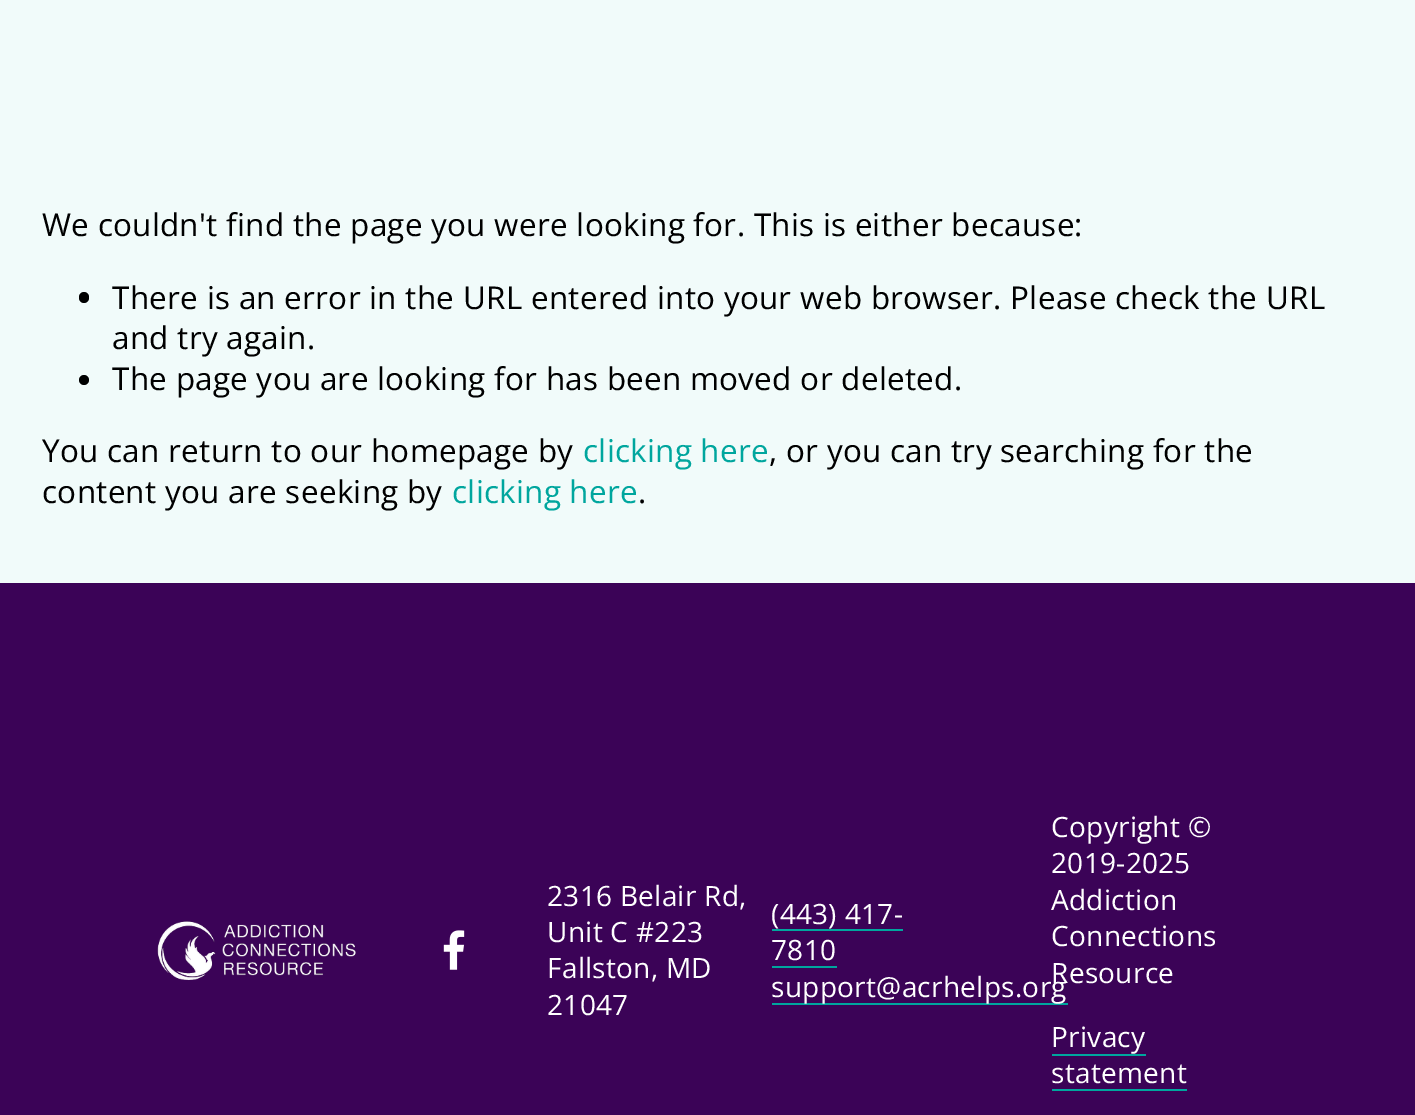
%!PS
<< /PageSize [1415 1115] >> setpagedevice
/roundrect { 5 dict begin { /r /h /w /y /x } { exch def } forall
  x r add y moveto x w add y 2 copy h add r arct x w add y h add x 1 index r arct
  x y h add x y r arct x y 2 copy exch w add exch r arct closepath end } def
/picture { 5 dict begin { /h /w /y /x /name } { exch def } forall
  gsave x y translate w h scale
  w h 8 [w 0 0 h 0 0] name (r) file false 3 colorimage grestore end } def
0 1115 translate 1 -1 scale
4 setmiterlimit
0.945 0.984 0.98 setrgbcolor
0 0 1415 1115 rectfill
/OpenSans-Regular [31.4 0 0 -31.4 0 0] selectfont
0 setgray
42 236 moveto 0.3 0 (We couldn't find the page you were looking for. This is either because:) ashow
79 292 10 11 5 roundrect fill
112 309 moveto 0.3 0 (There is an error in the URL entered into your web browser. Please check the URL) ashow
112 349 moveto 0.3 0 (and try again.) ashow
newpath 84 380 5 0 360 arc closepath fill
112 390 moveto 0.3 0 (The page you are looking for has been moved or deleted.) ashow
42 462 moveto 0.3 0 (You can return to our homepage by) ashow
0 0.651 0.62 setrgbcolor
583 462 moveto 0.3 0 (clicking here) ashow
0 setgray
769 462 moveto 0.3 0 (, or you can try searching for the) ashow
42 503 moveto 0.3 0 (content you are seeking by) ashow
0 0.651 0.62 setrgbcolor
452 503 moveto 0.3 0 (clicking here) ashow
0 setgray
638 503 moveto 0.3 0 (.) ashow
0.231 0.012 0.341 setrgbcolor
0 583 1415 532 rectfill
(img1.rgb) 157 921 199 60 picture
(img2.rgb) 443 930 22 40 picture
/OpenSans-Regular [28 0 0 -28 0 0] selectfont
1 setgray
547 906 moveto 0.3 0 (2316 Belair Rd,) ashow
547 942 moveto 0.3 0 (Unit C #223) ashow
547 978 moveto 0.3 0 (Fallston, MD) ashow
547 1015 moveto 0.3 0 (21047) ashow
771 924 moveto 0.3 0 (\(443\) 417-) ashow
0 0.651 0.62 setrgbcolor
772 929 131 2 rectfill
1 setgray
771 960 moveto 0.3 0 (7810) ashow
0 0.651 0.62 setrgbcolor
772 966 65 2 rectfill
772 1003 296 2 rectfill
1 setgray
1051 983 moveto 0.3 0 (Resource) ashow
771 997 moveto 0.3 0 (support@acrhelps.org) ashow
1051 837 moveto 0.3 0 (Copyright ©) ashow
1051 873 moveto 0.3 0 (2019-2025) ashow
1051 910 moveto 0.3 0 (Addiction) ashow
1051 946 moveto 0.3 0 (Connections) ashow
1051 1047 moveto 0.3 0 (Privacy) ashow
0 0.651 0.62 setrgbcolor
1052 1054 94 2 rectfill
1 setgray
1051 1083 moveto 0.3 0 (statement) ashow
0 0.651 0.62 setrgbcolor
1052 1089 135 2 rectfill
showpage
